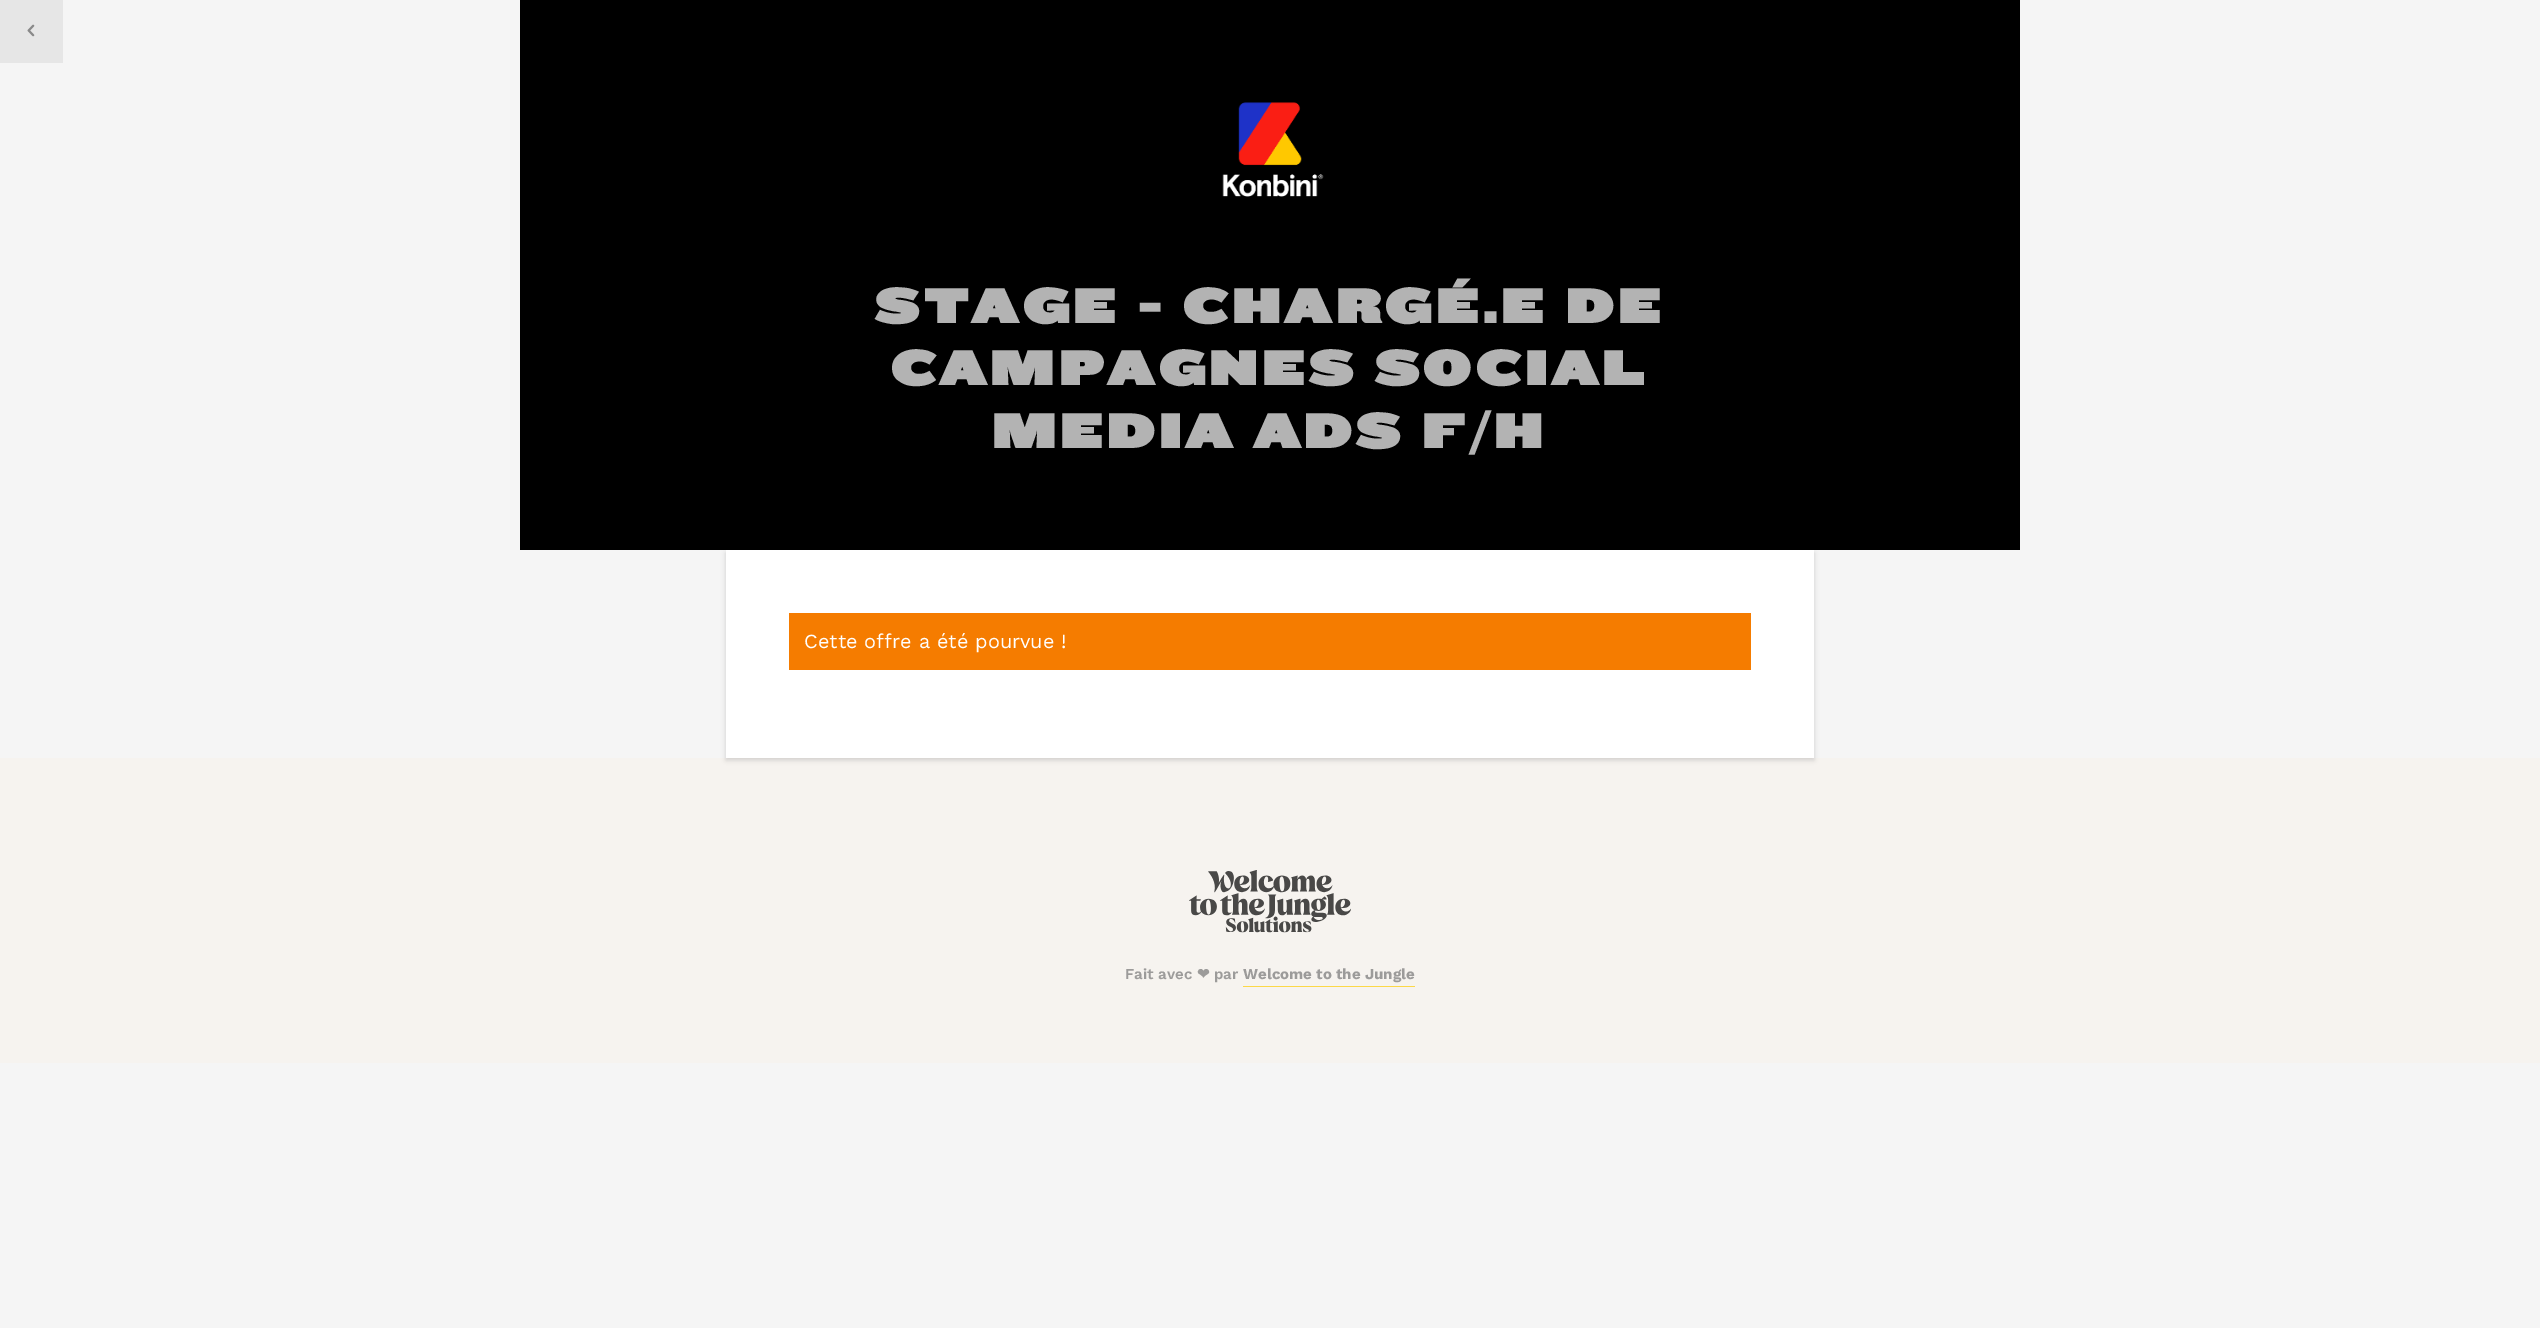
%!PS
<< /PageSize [2540 1328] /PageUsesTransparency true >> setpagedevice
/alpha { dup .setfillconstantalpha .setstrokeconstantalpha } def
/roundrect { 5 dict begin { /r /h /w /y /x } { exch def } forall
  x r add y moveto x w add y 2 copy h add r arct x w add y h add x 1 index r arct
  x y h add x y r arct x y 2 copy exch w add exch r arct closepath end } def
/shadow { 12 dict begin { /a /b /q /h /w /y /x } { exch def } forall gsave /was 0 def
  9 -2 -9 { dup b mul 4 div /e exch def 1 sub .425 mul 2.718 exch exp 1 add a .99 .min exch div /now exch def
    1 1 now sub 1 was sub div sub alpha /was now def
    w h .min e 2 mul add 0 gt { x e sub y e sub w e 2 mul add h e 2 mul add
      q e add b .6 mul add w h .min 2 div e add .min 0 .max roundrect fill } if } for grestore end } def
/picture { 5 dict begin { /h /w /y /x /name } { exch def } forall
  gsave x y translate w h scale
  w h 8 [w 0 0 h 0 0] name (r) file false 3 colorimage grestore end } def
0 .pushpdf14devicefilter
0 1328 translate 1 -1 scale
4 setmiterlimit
0.961 setgray
0 0 2540 1328 rectfill
0.902 setgray
0 0 63 63 rectfill
(img1.rgb) 27 24 8 13 picture
0 setgray
520 0 1500 550 rectfill
(img2.rgb) 1222 102 102 95 picture
/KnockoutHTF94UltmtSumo-Bold [50 0 0 -50 0 0] selectfont
0.702 setgray
875 323 moveto 5 0 (STAGE - CHARGÉ.E DE) ashow
891 385 moveto 5 0 (CAMPAGNES SOCIAL) ashow
992 448 moveto 5 0 (MEDIA ADS F/H) ashow
0.965 0.953 0.937 setrgbcolor
0 758 2540 305 rectfill
0 setgray
726 553 1088 207 0 2.5 0.15 shadow
1 setgray
726 550 1088 208 rectfill
0.961 0.486 0 setrgbcolor
789 613 962 57 rectfill
/WorkSans-Regular [20 0 0 -20 0 0] selectfont
1 setgray
804 648 moveto (Cette offre a été pourvue !) show
(img3.rgb) 1189 870 162 63 picture
/WorkSans-SemiBold [15 0 0 -15 0 0] selectfont
0.612 0.608 0.604 setrgbcolor
1125 979 moveto (Fait avec) show
/DejaVuSans-Bold [15 0 0 -15 0 0] selectfont
1197 979 moveto (❤) show
/WorkSans-SemiBold [15 0 0 -15 0 0] selectfont
1214 979 moveto (par) show
/WorkSans-Bold [15 0 0 -15 0 0] selectfont
1243 979 moveto (Welcome to the Jungle) show
0.988 0.847 0.282 setrgbcolor
1243 986 172 1 rectfill
.poppdf14devicefilter showpage
